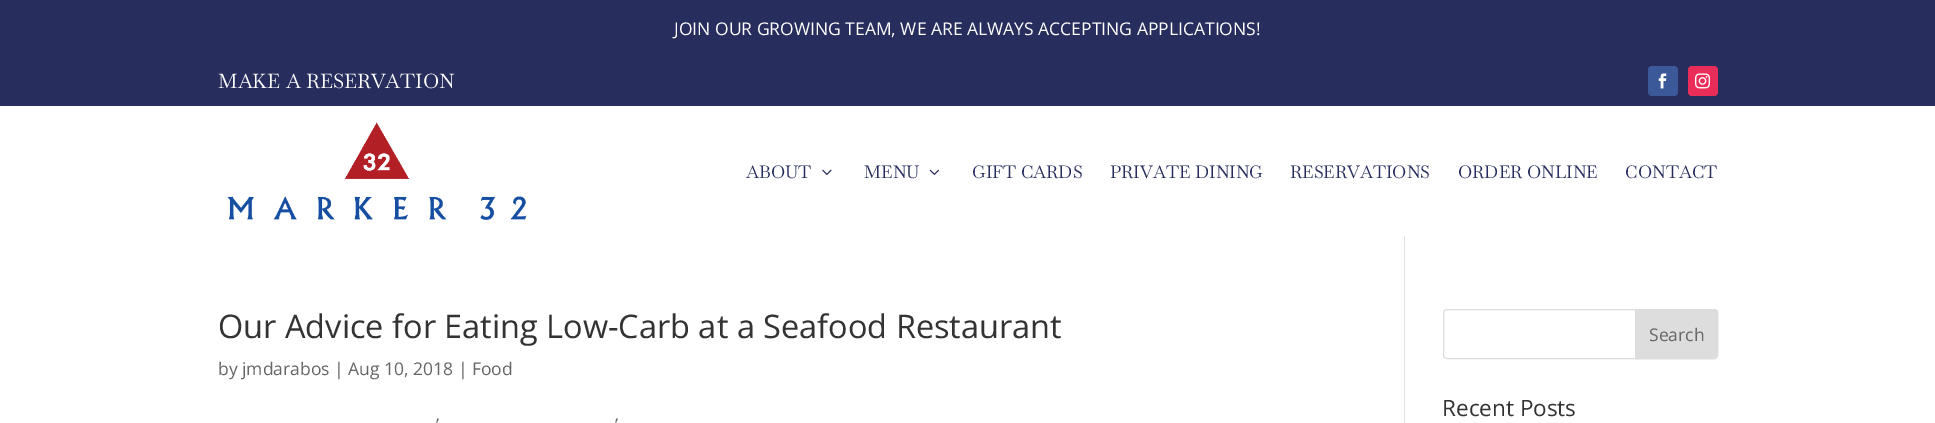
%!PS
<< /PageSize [1935 423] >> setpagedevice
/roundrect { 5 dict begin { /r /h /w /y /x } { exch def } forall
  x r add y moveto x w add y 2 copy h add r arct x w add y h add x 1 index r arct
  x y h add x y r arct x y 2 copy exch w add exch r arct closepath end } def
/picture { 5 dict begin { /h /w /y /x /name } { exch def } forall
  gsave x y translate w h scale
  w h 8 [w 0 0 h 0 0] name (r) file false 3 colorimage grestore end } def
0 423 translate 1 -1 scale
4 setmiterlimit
1 setgray
0 0 1935 423 rectfill
0.153 0.176 0.361 setrgbcolor
0 0 1935 106 rectfill
/OpenSans-Regular [17.5 0 0 -17.5 0 0] selectfont
1 setgray
674 35 moveto (JOIN OUR GROWING TEAM, WE ARE ALWAYS ACCEPTING APPLICATIONS!) show
/Baskervville-Regular [20 0 0 -20 0 0] selectfont
218 88 moveto (MAKE A RESERVATION) show
0.231 0.349 0.596 setrgbcolor
1648 66 30 30 4 roundrect fill
(img1.rgb) 1658 73 9 16 picture
0.918 0.173 0.349 setrgbcolor
1688 66 30 30 4 roundrect fill
(img2.rgb) 1695 73 15 16 picture
(img3.rgb) 227 122 300 98 picture
/Baskervville-Regular [17.5 0 0 -17.5 0 0] selectfont
0.153 0.176 0.361 setrgbcolor
746 178 moveto (ABOUT) show
(img4.rgb) 822 169 10 6 picture
864 178 moveto (MENU) show
(img5.rgb) 929 169 10 6 picture
972 178 moveto (GIFT CARDS) show
1110 178 moveto (PRIVATE DINING) show
1290 178 moveto (RESERVATIONS) show
1458 178 moveto (ORDER ONLINE) show
1625 178 moveto (CONTACT) show
0.886 setgray
1404 236 1 187 rectfill
/OpenSans-Regular [32.5 0 0 -32.5 0 0] selectfont
0.2 setgray
218 338 moveto (Our Advice for Eating Low-Carb at a Seafood Restaurant) show
/OpenSans-Regular [17.5 0 0 -17.5 0 0] selectfont
0.4 setgray
218 375 moveto (by jmdarabos | Aug 10, 2018 | Food) show
436 431 moveto (’) show
615 431 moveto (’) show
0.867 setgray
1443.5 309.5 274 49 3.5 roundrect stroke
newpath 1635.5 309.5 moveto 1714 309.5 lineto 1716 309.5 1717.5 311 1717.5 313 curveto 1717.5 355 lineto 1717.5 357 1716 358.5 1714 358.5 curveto 1635.5 358.5 lineto closepath gsave fill grestore
stroke
0.4 setgray
1649 341 moveto (Search) show
/OpenSans-Regular [22.5 0 0 -22.5 0 0] selectfont
0.2 setgray
1442 416 moveto (Recent Posts) show
showpage
